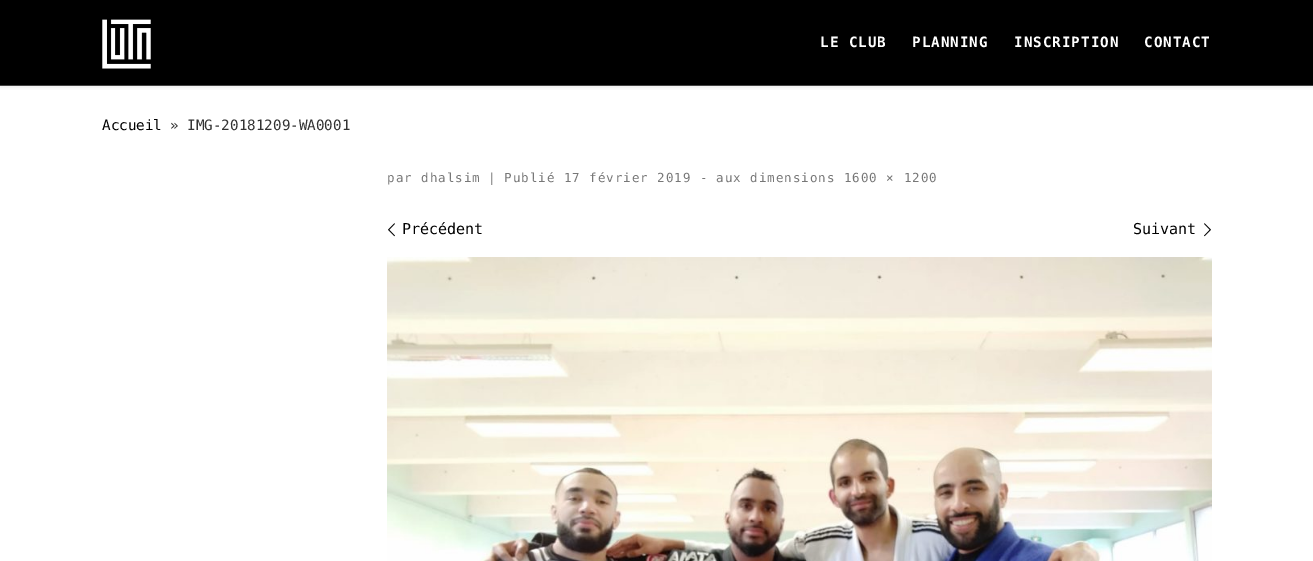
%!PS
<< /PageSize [1313 561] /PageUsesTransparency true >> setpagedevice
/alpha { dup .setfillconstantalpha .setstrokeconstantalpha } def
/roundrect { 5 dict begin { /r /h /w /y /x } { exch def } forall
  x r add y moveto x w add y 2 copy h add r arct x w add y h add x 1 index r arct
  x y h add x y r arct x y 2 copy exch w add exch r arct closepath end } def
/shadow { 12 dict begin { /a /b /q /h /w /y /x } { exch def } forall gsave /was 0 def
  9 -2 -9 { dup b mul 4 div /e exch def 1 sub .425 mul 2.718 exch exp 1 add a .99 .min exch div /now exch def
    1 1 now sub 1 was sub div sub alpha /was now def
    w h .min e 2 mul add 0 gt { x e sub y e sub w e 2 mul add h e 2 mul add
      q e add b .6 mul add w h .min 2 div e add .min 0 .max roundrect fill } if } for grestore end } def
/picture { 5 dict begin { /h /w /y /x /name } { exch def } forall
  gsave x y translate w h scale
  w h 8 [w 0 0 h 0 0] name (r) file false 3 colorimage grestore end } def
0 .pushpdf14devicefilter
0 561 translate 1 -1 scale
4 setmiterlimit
1 setgray
0 0 1313 561 rectfill
0.4 setgray
0 2 1313 86 0 1 0.08 shadow
0.267 setgray
0 85 1313 1 rectfill
0 setgray
0 0 1313 85 rectfill
(img1.rgb) 102 19 49 50 picture
/DejaVuSansMono-Bold [14.25 0 0 -14.25 0 0] selectfont
1 setgray
820 47 moveto 1 0 (LE CLUB) ashow
912 47 moveto 1 0 (PLANNING) ashow
1014 47 moveto 1 0 (INSCRIPTION) ashow
1144 47 moveto 1 0 (CONTACT) ashow
/DejaVuSansMono-Regular [14.25 0 0 -14.25 0 0] selectfont
0.008 setgray
102 130 moveto (Accueil) show
0.2 setgray
170 130 moveto (» IMG-20181209-WA0001) show
/DejaVuSansMono-Regular [12.5 0 0 -12.5 0 0] selectfont
0.467 setgray
387 182 moveto 1 0 (par dhalsim) ashow
488 182 moveto 1 0 (|) ashow
504 182 moveto 1 0 (Publié 17 février 2019) ashow
700 182 moveto 1 0 (-) ashow
716 182 moveto 1 0 (aux dimensions 1600 × 1200) ashow
(img2.rgb) 388 223 7 14 picture
/DejaVuSansMono-Regular [15 0 0 -15 0 0] selectfont
0.008 setgray
402 234 moveto (Précédent) show
1133 234 moveto (Suivant) show
(img3.rgb) 1204 223 7 14 picture
(img4.rgb) 387 257 825 304 picture
.poppdf14devicefilter showpage
